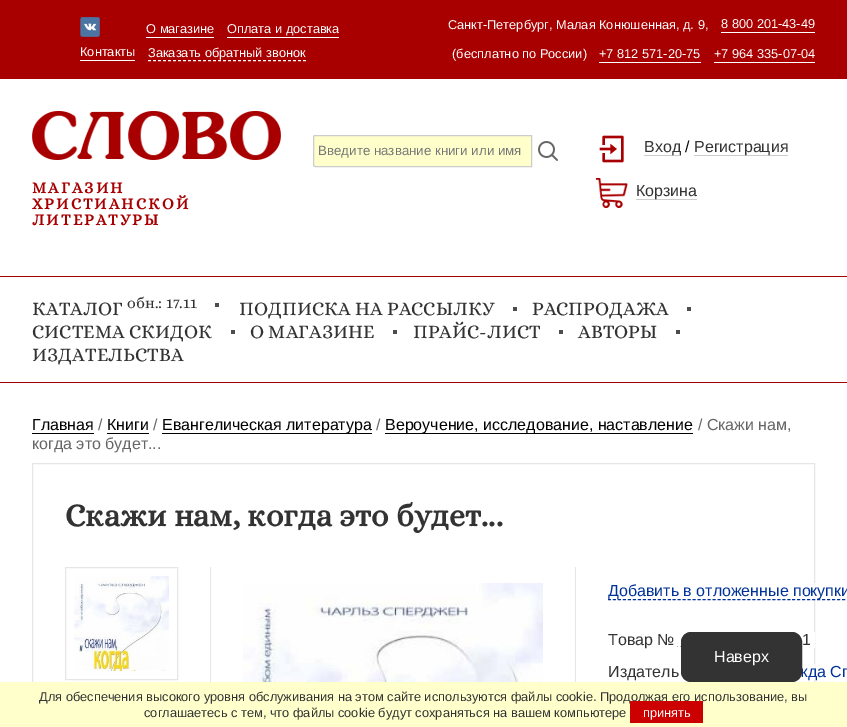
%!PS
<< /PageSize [847 727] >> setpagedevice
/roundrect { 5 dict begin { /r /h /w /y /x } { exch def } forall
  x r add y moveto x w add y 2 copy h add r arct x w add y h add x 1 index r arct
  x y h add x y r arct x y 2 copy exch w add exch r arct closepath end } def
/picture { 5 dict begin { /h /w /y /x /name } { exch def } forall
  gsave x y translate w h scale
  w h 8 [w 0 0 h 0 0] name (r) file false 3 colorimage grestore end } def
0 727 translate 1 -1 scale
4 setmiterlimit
1 setgray
0 0 847 727 rectfill
0.659 0 0 setrgbcolor
0 0 847 79 rectfill
(img1.rgb) 80 17 20 20 picture
1 setgray
146 37 68 1 rectfill
/LiberationSans-Regular [12.8 0 0 -12.8 0 0] selectfont
146 33 moveto (О магазине) show
227 37 112 1 rectfill
227 33 moveto (Оплата и доставка) show
80 60 55 1 rectfill
80 56 moveto (Контакты) show
148 57 moveto (Заказать обратный звонок) show
[3 2] 0 setdash
newpath 148 60.5 moveto 306 60.5 lineto stroke
448 29 moveto (Санкт-Петербург, Малая Конюшенная, д. 9,) show
721 32 94 1 rectfill
721 28 moveto (8 800 201-43-49) show
452 58 moveto (\(бесплатно по России\)) show
599 62 102 1 rectfill
599 58 moveto (+7 812 571-20-75) show
714 62 101 1 rectfill
714 58 moveto (+7 964 335-07-04) show
1 1 0.8 setrgbcolor
newpath 315 135.5 moveto 531.5 135.5 lineto 531.5 166.5 lineto 315 166.5 lineto 314 166.5 313.5 166 313.5 165 curveto 313.5 137 lineto 313.5 136 314 135.5 315 135.5 curveto closepath gsave fill grestore
0.8 setgray
[] 0 setdash
stroke
/LiberationSans-Regular [13.3 0 0 -13.3 0 0] selectfont
0.459 setgray
318 155 moveto (Введите название книги или имя) show
(img2.rgb) 538 141 20 20 picture
(img3.rgb) 599 135 25 28 picture
0.8 setgray
644 155 37 1 rectfill
/LiberationSans-Regular [16 0 0 -16 0 0] selectfont
0.2 setgray
644 152 moveto (Вход) show
0 setgray
685 152 moveto (/) show
0.8 setgray
694 155 94 1 rectfill
0.2 setgray
694 152 moveto (Регистрация) show
(img4.rgb) 596 178 32 30 picture
0.8 setgray
636 199 61 1 rectfill
0.2 setgray
636 196 moveto (Корзина) show
(img5.rgb) 32 111 249 49 picture
/Alice-Bold [16 0 0 -16 0 0] selectfont
0.659 0 0 setrgbcolor
32 193 moveto 2 0 (МАГАЗИН) ashow
32 209 moveto 2 0 (ХРИСТИАНСКОЙ) ashow
32 225 moveto 2 0 (ЛИТЕРАТУРЫ) ashow
0 276 847 1 rectfill
0 382 847 1 rectfill
/Alice-Regular [19.25 0 0 -19.25 0 0] selectfont
0.2 setgray
32 315 moveto (КАТАЛОГ) show
/Alice-Regular [16 0 0 -16 0 0] selectfont
127 308 moveto (обн.: 17.11) show
0.302 setgray
215 303 4 4 rectfill
/Alice-Regular [19.25 0 0 -19.25 0 0] selectfont
0.2 setgray
239 315 moveto (ПОДПИСКА НА РАССЫЛКУ) show
0.302 setgray
513 307 4 4 rectfill
0.2 setgray
532 315 moveto (РАСПРОДАЖА) show
0.302 setgray
687 307 4 4 rectfill
0.2 setgray
32 338 moveto (СИСТЕМА СКИДОК) show
0.302 setgray
231 330 4 4 rectfill
0.2 setgray
250 338 moveto (О МАГАЗИНЕ) show
0.302 setgray
393 330 4 4 rectfill
0.2 setgray
413 338 moveto (ПРАЙС-ЛИСТ) show
0.302 setgray
559 330 4 4 rectfill
0.2 setgray
578 338 moveto (АВТОРЫ) show
0.302 setgray
676 330 4 4 rectfill
0.2 setgray
32 361 moveto (ИЗДАТЕЛЬСТВА) show
/LiberationSans-Regular [16 0 0 -16 0 0] selectfont
0 setgray
32 430 moveto (Главная) show
32 433 62 1 rectfill
0.4 setgray
98 430 moveto (/) show
0 setgray
107 430 moveto (Книги) show
107 433 42 1 rectfill
0.4 setgray
153 430 moveto (/) show
0 setgray
162 433 210 1 rectfill
162 430 moveto (Евангелическая литература) show
0.4 setgray
376 430 moveto (/) show
0 setgray
385 433 308 1 rectfill
385 430 moveto (Вероучение, исследование, наставление) show
0.4 setgray
698 430 moveto (/ Скажи нам,) show
32 449 moveto (когда это будет...) show
0.902 setgray
32.5 463.5 782 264 rectstroke
/Alice-Bold [32 0 0 -32 0 0] selectfont
0.2 setgray
65 526 moveto (Скажи нам, когда это будет...) show
0.902 setgray
65.5 567.5 112 112 rectstroke
(img6.rgb) 74 576 95 95 picture
575 567 1 115 rectfill
210 567 1 115 rectfill
(img7.rgb) 243 583 300 99 picture
1 setgray
814 583 1 17 rectfill
0 0.2 0.6 setrgbcolor
[3 1.98] 0 setdash
newpath 608 599.5 moveto 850 599.5 lineto stroke
/LiberationSans-Regular [16 0 0 -16 0 0] selectfont
608 596 moveto (Добавить в отложенные покупки) show
(img8.rgb) 675 646 6 2 picture
0.2 setgray
608 645 moveto (Товар №) show
1 setgray
814 632 1 16 rectfill
0.2 setgray
802 645 moveto (1) show
608 677 moveto (Издатель) show
1 setgray
814 664 1 16 rectfill
0 0.2 0.6 setrgbcolor
797 677 moveto (жда Сп) show
0.2 setgray
681.5 632.5 120 49 9.5 roundrect gsave fill grestore
[] 0 setdash
stroke
1 setgray
714 662 moveto (Наверх) show
1 1 0.8 setrgbcolor
0 682 847 45 rectfill
/LiberationSans-Regular [12.8 0 0 -12.8 0 0] selectfont
0.2 setgray
39 701 moveto (Для обеспечения высокого уровня обслуживания на этом сайте используются файлы cookie. Продолжая его использование, вы) show
144 717 moveto (соглашаетесь с тем, что файлы cookie будут сохраняться на вашем компьютере) show
0.8 0 0 setrgbcolor
630 701 73 22 rectfill
1 setgray
643 717 moveto (принять) show
showpage
